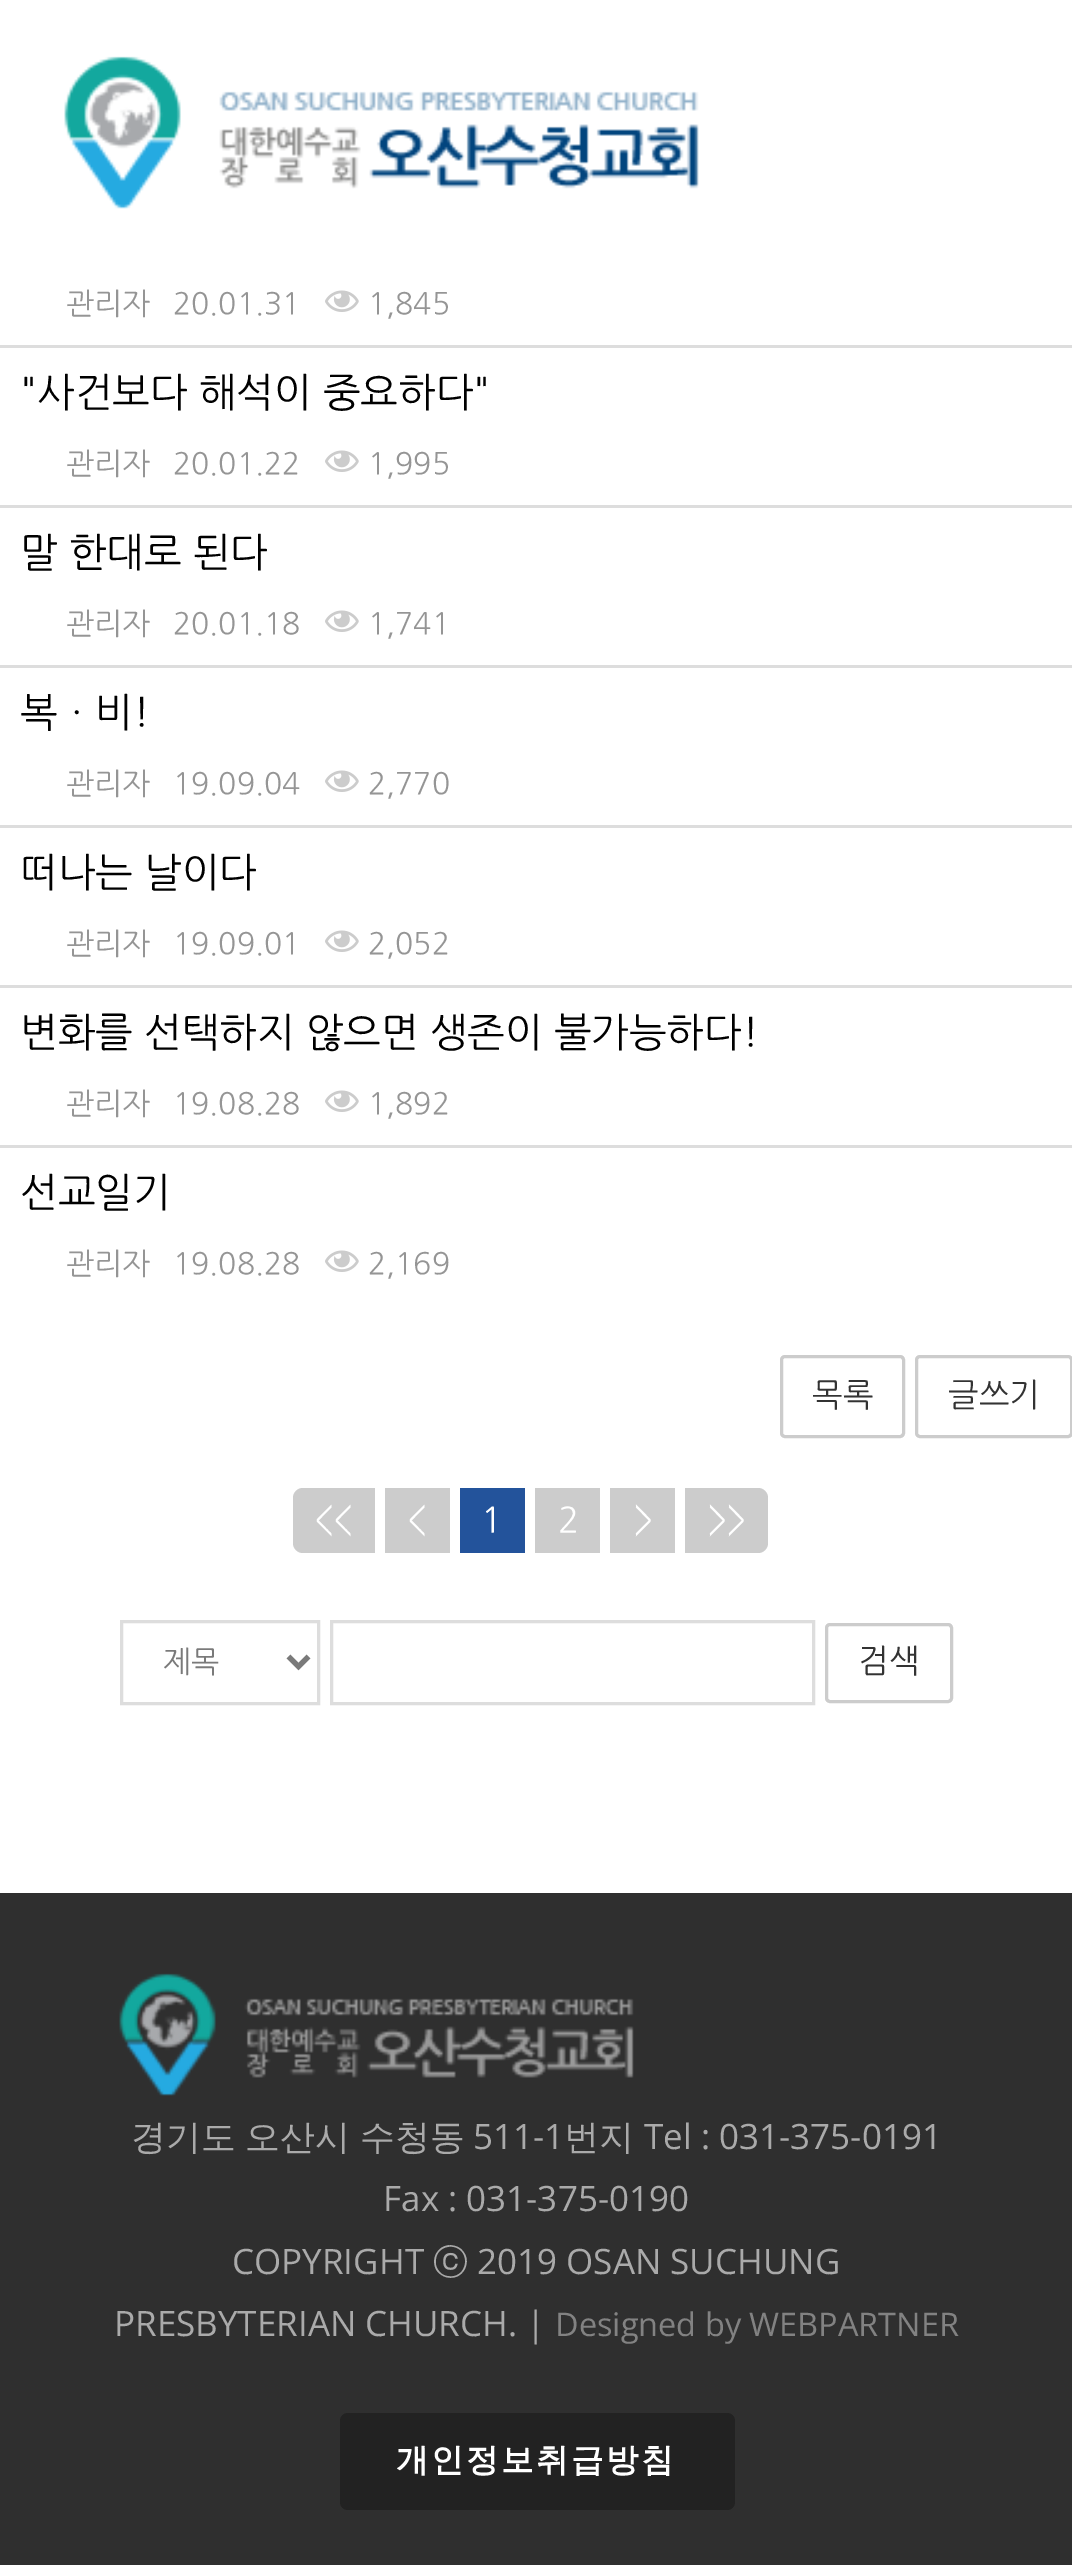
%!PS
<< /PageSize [1072 2565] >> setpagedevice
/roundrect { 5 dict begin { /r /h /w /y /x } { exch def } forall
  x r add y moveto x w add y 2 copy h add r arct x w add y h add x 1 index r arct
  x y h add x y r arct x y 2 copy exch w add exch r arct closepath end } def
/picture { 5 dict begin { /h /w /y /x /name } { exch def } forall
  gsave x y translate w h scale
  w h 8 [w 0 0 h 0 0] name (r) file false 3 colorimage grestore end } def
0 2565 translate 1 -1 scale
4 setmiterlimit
1 setgray
0 0 1072 2565 rectfill
(img1.rgb) 64 56 635 153 picture
/NanumGothic-Regular [30 0 0 -30 0 0] selectfont
0.584 setgray
66 313 moveto (관리자) show
173 313 moveto (20.01.31) show
(img2.rgb) 325 290 34 22 picture
368 313 moveto (1,845) show
0.867 setgray
0 345 1072 3 rectfill
/NanumGothic-Regular [40 0 0 -40 0 0] selectfont
0 setgray
20 405 moveto ("사건보다 해석이 중요하다") show
/NanumGothic-Regular [30 0 0 -30 0 0] selectfont
0.584 setgray
66 473 moveto (관리자) show
173 473 moveto (20.01.22) show
(img2.rgb) 325 450 34 22 picture
368 473 moveto (1,995) show
0.867 setgray
0 505 1072 3 rectfill
/NanumGothic-Regular [40 0 0 -40 0 0] selectfont
0 setgray
20 565 moveto (말 한대로 된다) show
/NanumGothic-Regular [30 0 0 -30 0 0] selectfont
0.584 setgray
66 633 moveto (관리자) show
173 633 moveto (20.01.18) show
(img2.rgb) 325 610 34 22 picture
368 633 moveto (1,741) show
0.867 setgray
0 665 1072 3 rectfill
/NanumGothic-Regular [40 0 0 -40 0 0] selectfont
0 setgray
20 725 moveto (복ㆍ비!) show
/NanumGothic-Regular [30 0 0 -30 0 0] selectfont
0.584 setgray
66 793 moveto (관리자) show
173 793 moveto (19.09.04) show
(img2.rgb) 325 770 34 22 picture
368 793 moveto (2,770) show
0.867 setgray
0 825 1072 3 rectfill
/NanumGothic-Regular [40 0 0 -40 0 0] selectfont
0 setgray
20 885 moveto (떠나는 날이다) show
/NanumGothic-Regular [30 0 0 -30 0 0] selectfont
0.584 setgray
66 953 moveto (관리자) show
173 953 moveto (19.09.01) show
(img2.rgb) 325 930 34 22 picture
368 953 moveto (2,052) show
0.867 setgray
0 985 1072 3 rectfill
/NanumGothic-Regular [40 0 0 -40 0 0] selectfont
0 setgray
20 1045 moveto (변화를 선택하지 않으면 생존이 불가능하다!) show
/NanumGothic-Regular [30 0 0 -30 0 0] selectfont
0.584 setgray
66 1113 moveto (관리자) show
173 1113 moveto (19.08.28) show
(img2.rgb) 325 1090 34 22 picture
368 1113 moveto (1,892) show
0.867 setgray
0 1145 1072 3 rectfill
/NanumGothic-Regular [40 0 0 -40 0 0] selectfont
0 setgray
20 1205 moveto (선교일기) show
/NanumGothic-Regular [30 0 0 -30 0 0] selectfont
0.584 setgray
66 1273 moveto (관리자) show
173 1273 moveto (19.08.28) show
(img2.rgb) 325 1250 34 22 picture
368 1273 moveto (2,169) show
0.8 setgray
3 setlinewidth
781.5 1356.5 122 80 3.5 roundrect stroke
/NanumGothic-Regular [32.5 0 0 -32.5 0 0] selectfont
0.2 setgray
812 1405 moveto (목록) show
0.8 setgray
916.5 1356.5 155 80 3.5 roundrect stroke
0.2 setgray
948 1405 moveto (글쓰기) show
0.8 setgray
newpath 303 1488 moveto 375 1488 lineto 375 1553 lineto 303 1553 lineto 297.5 1553 293 1548.5 293 1543 curveto 293 1498 lineto 293 1492.5 297.5 1488 303 1488 curveto closepath fill
/NanumGothic-Regular [35 0 0 -35 0 0] selectfont
1 setgray
314 1531 moveto (<<) show
0.8 setgray
385 1488 65 65 rectfill
1 setgray
407 1531 moveto (<) show
0.137 0.325 0.608 setrgbcolor
460 1488 65 65 rectfill
1 setgray
481 1531 moveto (1) show
0.8 setgray
535 1488 65 65 rectfill
1 setgray
558 1531 moveto (2) show
0.8 setgray
610 1488 65 65 rectfill
1 setgray
634 1531 moveto (>) show
0.8 setgray
newpath 685 1488 moveto 758 1488 lineto 763.5 1488 768 1492.5 768 1498 curveto 768 1543 lineto 768 1548.5 763.5 1553 758 1553 curveto 685 1553 lineto closepath fill
1 setgray
708 1531 moveto (>>) show
0.867 setgray
121.5 1621.5 197 82 rectstroke
0.478 setgray
5 setlinewidth
newpath 288.5 1656.5 moveto 298.5 1666.5 lineto 308.5 1656.5 lineto stroke
/NanumGothic-Regular [30 0 0 -30 0 0] selectfont
163 1671 moveto (제목) show
0.867 setgray
3 setlinewidth
331.5 1621.5 482 82 rectstroke
0.8 setgray
826.5 1624.5 125 77 3.5 roundrect stroke
/NanumGothic-Regular [32.5 0 0 -32.5 0 0] selectfont
0.2 setgray
858 1671 moveto (검색) show
0.184 setgray
0 1893 1072 672 rectfill
(img3.rgb) 119 1973 515 123 picture
/WenQuanYiZenHei-Medium [35 0 0 -35 0 0] selectfont
0.667 setgray
131 2149 moveto -1 0 32 (경기도 오산시 수청동) widthshow
/OpenSans-Regular [35 0 0 -35 0 0] selectfont
473 2149 moveto (511-1) show
/WenQuanYiZenHei-Medium [35 0 0 -35 0 0] selectfont
564 2149 moveto (번지) show
/OpenSans-Regular [35 0 0 -35 0 0] selectfont
644 2149 moveto (Tel : 031-375-0191) show
383 2211 moveto (Fax : 031-375-0190) show
232 2274 moveto (COPYRIGHT) show
/WenQuanYiZenHei-Medium [35 0 0 -35 0 0] selectfont
433 2274 moveto (ⓒ) show
/OpenSans-Regular [35 0 0 -35 0 0] selectfont
477 2274 moveto (2019 OSAN SUCHUNG) show
114 2336 moveto (PRESBYTERIAN CHURCH. |) show
/OpenSans-Regular [32.5 0 0 -32.5 0 0] selectfont
0.51 setgray
555 2336 moveto (Designed by WEBPARTNER) show
0.133 setgray
340 2413 395 97 8 roundrect fill
/WenQuanYiZenHei-Bold [32.5 0 0 -32.5 0 0] selectfont
1 setgray
396 2471 moveto 2.5 0 (개인정보취급방침) ashow
showpage
